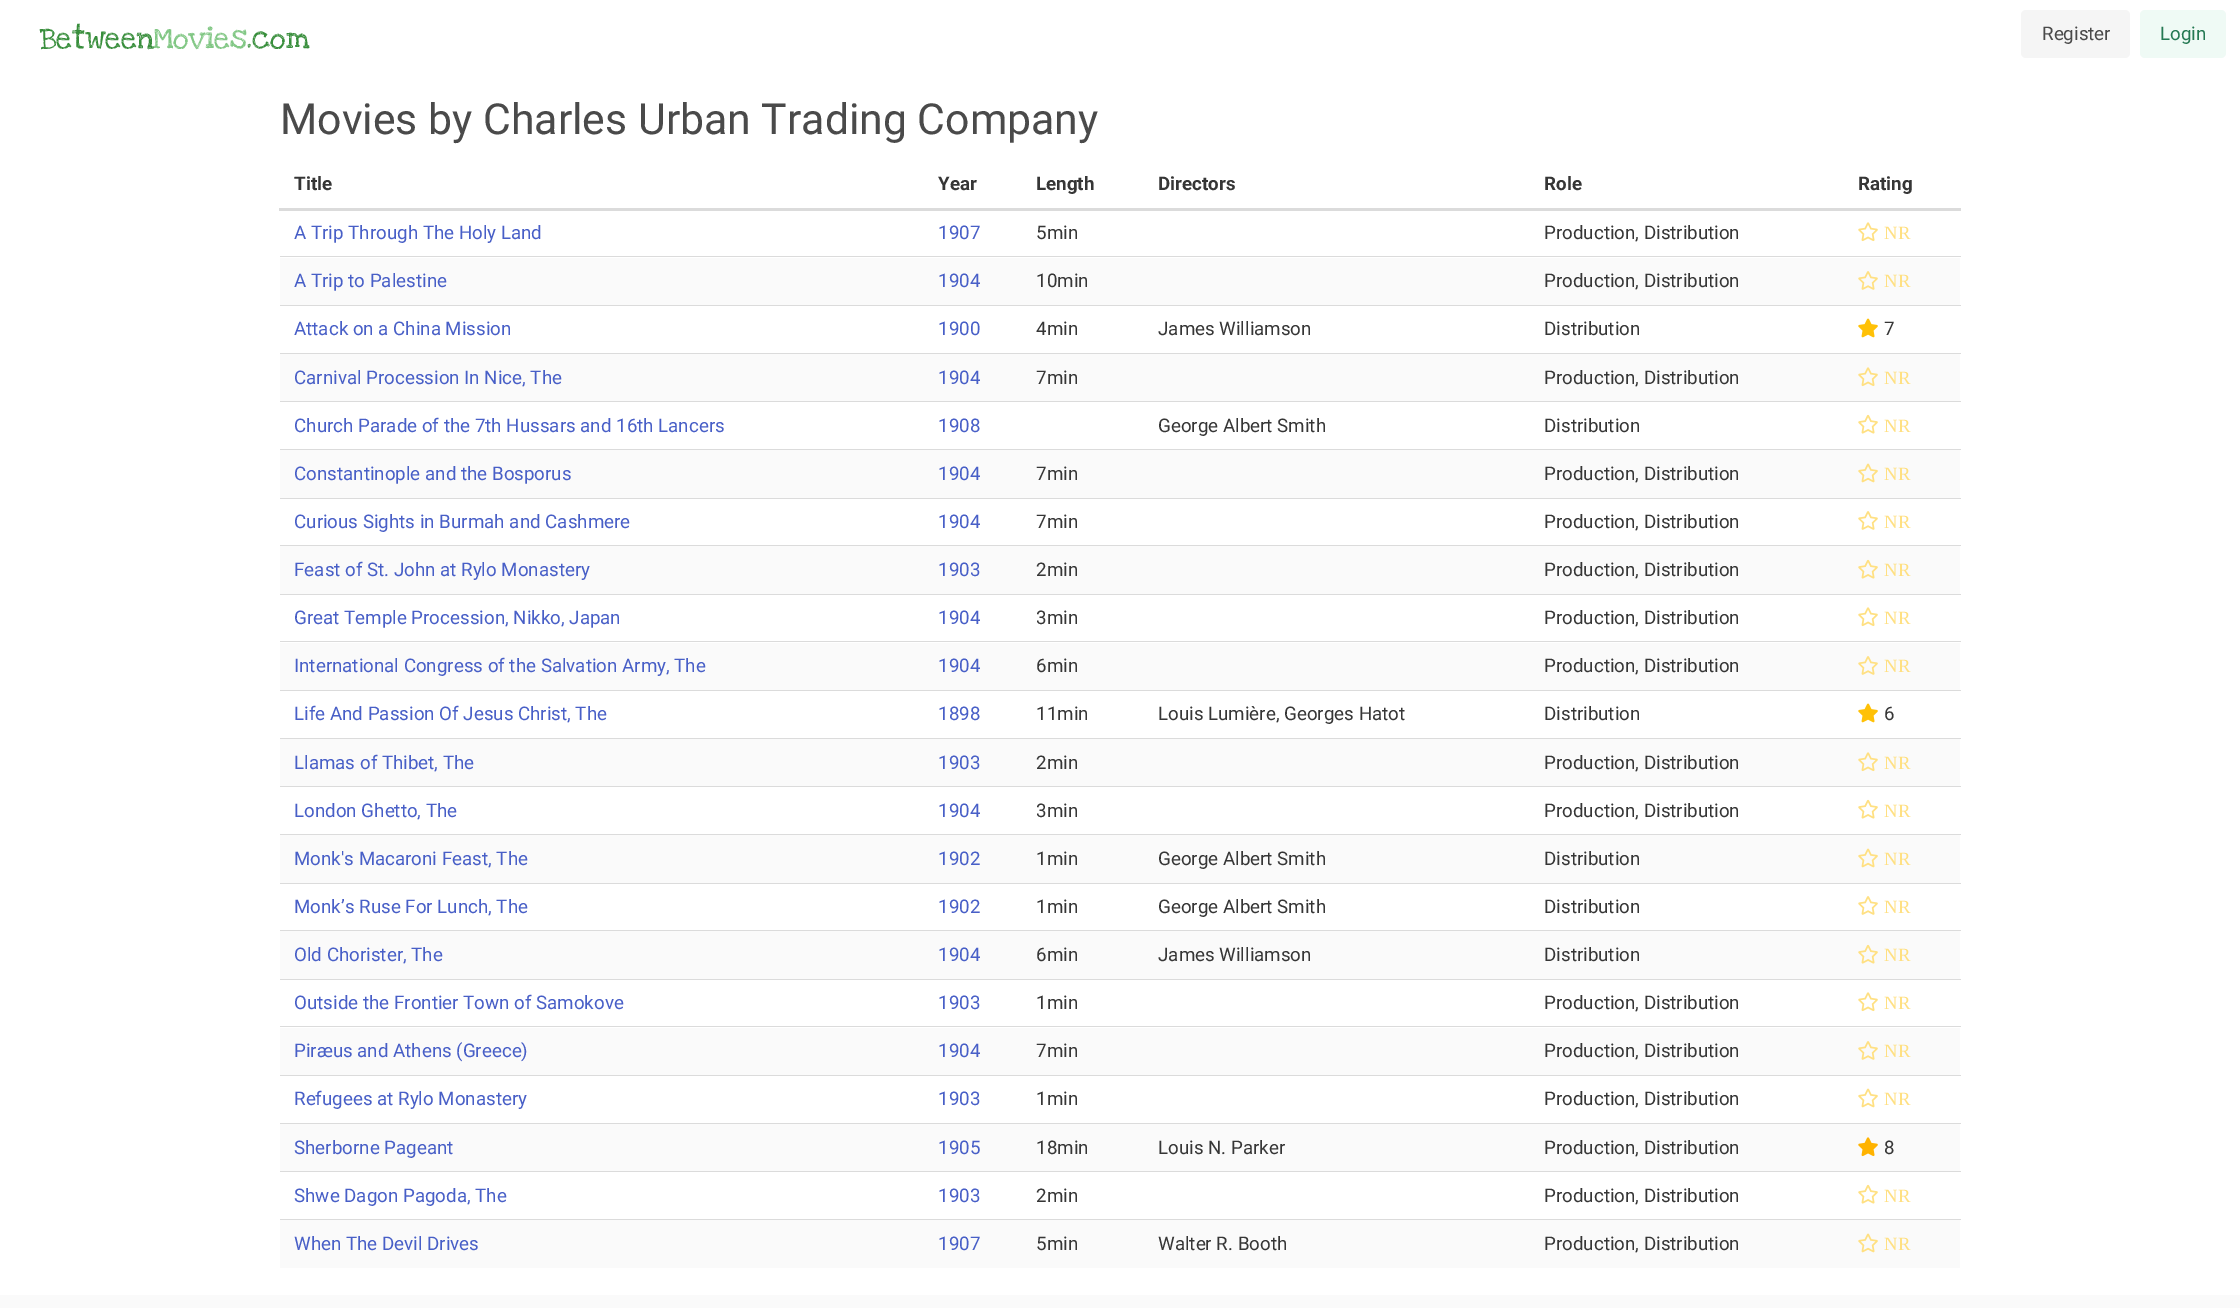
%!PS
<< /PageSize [2240 1308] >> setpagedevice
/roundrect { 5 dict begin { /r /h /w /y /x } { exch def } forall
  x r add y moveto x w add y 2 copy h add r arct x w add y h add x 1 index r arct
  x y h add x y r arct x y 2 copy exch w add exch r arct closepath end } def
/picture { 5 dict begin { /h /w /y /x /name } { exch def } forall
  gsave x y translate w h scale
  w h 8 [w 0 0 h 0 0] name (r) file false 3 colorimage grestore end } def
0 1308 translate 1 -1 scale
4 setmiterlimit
1 setgray
0 0 2240 1308 rectfill
/LoveYaLikeASister-Regular [31 0 0 -31 0 0] selectfont
0.22 0.557 0.235 setrgbcolor
40 48 moveto (Between) show
0.506 0.78 0.518 setrgbcolor
153 48 moveto (Movies) show
0.22 0.557 0.235 setrgbcolor
246 48 moveto (.com) show
0.961 setgray
2021 10 109 48 5 roundrect fill
/Roboto-Regular [18.75 0 0 -18.75 0 0] selectfont
0.29 setgray
2042 40 moveto (Register) show
0.937 0.98 0.961 setrgbcolor
2140 10 86 48 5 roundrect fill
0.145 0.475 0.325 setrgbcolor
2160 40 moveto (Login) show
/Roboto-Regular [42.75 0 0 -42.75 0 0] selectfont
0.29 setgray
280 134 moveto (Movies by Charles Urban Trading Company) show
/Roboto-Bold [18.75 0 0 -18.75 0 0] selectfont
0.212 setgray
294 190 moveto (Title) show
938 190 moveto (Year) show
1036 190 moveto (Length) show
1158 190 moveto (Directors) show
1544 190 moveto (Role) show
0.859 setgray
279 208 1682 3 rectfill
0.212 setgray
1858 190 moveto (Rating) show
/Roboto-Regular [18.75 0 0 -18.75 0 0] selectfont
0.282 0.373 0.78 setrgbcolor
294 239 moveto (A Trip Through The Holy Land) show
938 239 moveto (1907) show
0.212 setgray
1036 239 moveto (5min) show
1544 239 moveto (Production, Distribution) show
0.859 setgray
280 256 1681 1 rectfill
(img1.rgb) 1858 222 20 20 picture
/LiberationSerif-Regular [18.75 0 0 -18.75 0 0] selectfont
1 0.878 0.51 setrgbcolor
1884 239 moveto (NR) show
0.98 setgray
280 258 1680 47 rectfill
/Roboto-Regular [18.75 0 0 -18.75 0 0] selectfont
0.282 0.373 0.78 setrgbcolor
294 287 moveto (A Trip to Palestine) show
938 287 moveto (1904) show
0.212 setgray
1036 287 moveto (10min) show
1544 287 moveto (Production, Distribution) show
0.859 setgray
280 305 1681 1 rectfill
(img2.rgb) 1858 271 20 19 picture
/LiberationSerif-Regular [18.75 0 0 -18.75 0 0] selectfont
1 0.878 0.51 setrgbcolor
1884 287 moveto (NR) show
/Roboto-Regular [18.75 0 0 -18.75 0 0] selectfont
0.282 0.373 0.78 setrgbcolor
294 335 moveto (Attack on a China Mission) show
938 335 moveto (1900) show
0.212 setgray
1036 335 moveto (4min) show
1158 335 moveto (James Williamson) show
1544 335 moveto (Distribution) show
0.859 setgray
280 353 1681 1 rectfill
(img3.rgb) 1858 318 20 20 picture
0.212 setgray
1884 335 moveto (7) show
0.98 setgray
280 354 1680 47 rectfill
0.282 0.373 0.78 setrgbcolor
294 384 moveto (Carnival Procession In Nice, The) show
938 384 moveto (1904) show
0.212 setgray
1036 384 moveto (7min) show
1544 384 moveto (Production, Distribution) show
0.859 setgray
280 401 1681 1 rectfill
(img4.rgb) 1858 367 20 20 picture
/LiberationSerif-Regular [18.75 0 0 -18.75 0 0] selectfont
1 0.878 0.51 setrgbcolor
1884 384 moveto (NR) show
/Roboto-Regular [18.75 0 0 -18.75 0 0] selectfont
0.282 0.373 0.78 setrgbcolor
294 432 moveto (Church Parade of the 7th Hussars and 16th Lancers) show
938 432 moveto (1908) show
0.212 setgray
1158 432 moveto (George Albert Smith) show
1544 432 moveto (Distribution) show
0.859 setgray
280 449 1681 1 rectfill
(img5.rgb) 1858 414 20 20 picture
/LiberationSerif-Regular [18.75 0 0 -18.75 0 0] selectfont
1 0.878 0.51 setrgbcolor
1884 432 moveto (NR) show
0.98 setgray
280 450 1680 48 rectfill
/Roboto-Regular [18.75 0 0 -18.75 0 0] selectfont
0.282 0.373 0.78 setrgbcolor
294 480 moveto (Constantinople and the Bosporus) show
938 480 moveto (1904) show
0.212 setgray
1036 480 moveto (7min) show
1544 480 moveto (Production, Distribution) show
0.859 setgray
280 498 1681 1 rectfill
(img6.rgb) 1858 463 20 20 picture
/LiberationSerif-Regular [18.75 0 0 -18.75 0 0] selectfont
1 0.878 0.51 setrgbcolor
1884 480 moveto (NR) show
/Roboto-Regular [18.75 0 0 -18.75 0 0] selectfont
0.282 0.373 0.78 setrgbcolor
294 528 moveto (Curious Sights in Burmah and Cashmere) show
938 528 moveto (1904) show
0.212 setgray
1036 528 moveto (7min) show
1544 528 moveto (Production, Distribution) show
0.859 setgray
280 545 1681 1 rectfill
(img7.rgb) 1858 511 20 19 picture
/LiberationSerif-Regular [18.75 0 0 -18.75 0 0] selectfont
1 0.878 0.51 setrgbcolor
1884 528 moveto (NR) show
0.98 setgray
280 546 1680 48 rectfill
/Roboto-Regular [18.75 0 0 -18.75 0 0] selectfont
0.282 0.373 0.78 setrgbcolor
294 576 moveto (Feast of St. John at Rylo Monastery) show
938 576 moveto (1903) show
0.212 setgray
1036 576 moveto (2min) show
1544 576 moveto (Production, Distribution) show
0.859 setgray
280 594 1681 1 rectfill
(img8.rgb) 1858 559 20 20 picture
/LiberationSerif-Regular [18.75 0 0 -18.75 0 0] selectfont
1 0.878 0.51 setrgbcolor
1884 576 moveto (NR) show
/Roboto-Regular [18.75 0 0 -18.75 0 0] selectfont
0.282 0.373 0.78 setrgbcolor
294 624 moveto (Great Temple Procession, Nikko, Japan) show
938 624 moveto (1904) show
0.212 setgray
1036 624 moveto (3min) show
1544 624 moveto (Production, Distribution) show
0.859 setgray
280 641 1681 1 rectfill
(img1.rgb) 1858 607 20 20 picture
/LiberationSerif-Regular [18.75 0 0 -18.75 0 0] selectfont
1 0.878 0.51 setrgbcolor
1884 624 moveto (NR) show
0.98 setgray
280 643 1680 47 rectfill
/Roboto-Regular [18.75 0 0 -18.75 0 0] selectfont
0.282 0.373 0.78 setrgbcolor
294 672 moveto (International Congress of the Salvation Army, The) show
938 672 moveto (1904) show
0.212 setgray
1036 672 moveto (6min) show
1544 672 moveto (Production, Distribution) show
0.859 setgray
280 690 1681 1 rectfill
(img2.rgb) 1858 656 20 19 picture
/LiberationSerif-Regular [18.75 0 0 -18.75 0 0] selectfont
1 0.878 0.51 setrgbcolor
1884 672 moveto (NR) show
/Roboto-Regular [18.75 0 0 -18.75 0 0] selectfont
0.282 0.373 0.78 setrgbcolor
294 720 moveto (Life And Passion Of Jesus Christ, The) show
938 720 moveto (1898) show
0.212 setgray
1036 720 moveto (11min) show
1158 720 moveto (Louis Lumière, Georges Hatot) show
1544 720 moveto (Distribution) show
0.859 setgray
280 738 1681 1 rectfill
(img3.rgb) 1858 703 20 20 picture
0.212 setgray
1884 720 moveto (6) show
0.98 setgray
280 739 1680 47 rectfill
0.282 0.373 0.78 setrgbcolor
294 769 moveto (Llamas of Thibet, The) show
938 769 moveto (1903) show
0.212 setgray
1036 769 moveto (2min) show
1544 769 moveto (Production, Distribution) show
0.859 setgray
280 786 1681 1 rectfill
(img4.rgb) 1858 752 20 20 picture
/LiberationSerif-Regular [18.75 0 0 -18.75 0 0] selectfont
1 0.878 0.51 setrgbcolor
1884 769 moveto (NR) show
/Roboto-Regular [18.75 0 0 -18.75 0 0] selectfont
0.282 0.373 0.78 setrgbcolor
294 817 moveto (London Ghetto, The) show
938 817 moveto (1904) show
0.212 setgray
1036 817 moveto (3min) show
1544 817 moveto (Production, Distribution) show
0.859 setgray
280 834 1681 1 rectfill
(img5.rgb) 1858 799 20 20 picture
/LiberationSerif-Regular [18.75 0 0 -18.75 0 0] selectfont
1 0.878 0.51 setrgbcolor
1884 817 moveto (NR) show
0.98 setgray
280 835 1680 48 rectfill
/Roboto-Regular [18.75 0 0 -18.75 0 0] selectfont
0.282 0.373 0.78 setrgbcolor
294 865 moveto (Monk's Macaroni Feast, The) show
938 865 moveto (1902) show
0.212 setgray
1036 865 moveto (1min) show
1158 865 moveto (George Albert Smith) show
1544 865 moveto (Distribution) show
0.859 setgray
280 883 1681 1 rectfill
(img6.rgb) 1858 848 20 20 picture
/LiberationSerif-Regular [18.75 0 0 -18.75 0 0] selectfont
1 0.878 0.51 setrgbcolor
1884 865 moveto (NR) show
/Roboto-Regular [18.75 0 0 -18.75 0 0] selectfont
0.282 0.373 0.78 setrgbcolor
294 913 moveto (Monk’s Ruse For Lunch, The) show
938 913 moveto (1902) show
0.212 setgray
1036 913 moveto (1min) show
1158 913 moveto (George Albert Smith) show
1544 913 moveto (Distribution) show
0.859 setgray
280 930 1681 1 rectfill
(img7.rgb) 1858 896 20 19 picture
/LiberationSerif-Regular [18.75 0 0 -18.75 0 0] selectfont
1 0.878 0.51 setrgbcolor
1884 913 moveto (NR) show
0.98 setgray
280 931 1680 48 rectfill
/Roboto-Regular [18.75 0 0 -18.75 0 0] selectfont
0.282 0.373 0.78 setrgbcolor
294 961 moveto (Old Chorister, The) show
938 961 moveto (1904) show
0.212 setgray
1036 961 moveto (6min) show
1158 961 moveto (James Williamson) show
1544 961 moveto (Distribution) show
0.859 setgray
280 979 1681 1 rectfill
(img8.rgb) 1858 944 20 20 picture
/LiberationSerif-Regular [18.75 0 0 -18.75 0 0] selectfont
1 0.878 0.51 setrgbcolor
1884 961 moveto (NR) show
/Roboto-Regular [18.75 0 0 -18.75 0 0] selectfont
0.282 0.373 0.78 setrgbcolor
294 1009 moveto (Outside the Frontier Town of Samokove) show
938 1009 moveto (1903) show
0.212 setgray
1036 1009 moveto (1min) show
1544 1009 moveto (Production, Distribution) show
0.859 setgray
280 1026 1681 1 rectfill
(img1.rgb) 1858 992 20 20 picture
/LiberationSerif-Regular [18.75 0 0 -18.75 0 0] selectfont
1 0.878 0.51 setrgbcolor
1884 1009 moveto (NR) show
0.98 setgray
280 1028 1680 47 rectfill
/Roboto-Regular [18.75 0 0 -18.75 0 0] selectfont
0.282 0.373 0.78 setrgbcolor
294 1057 moveto (Piræus and Athens \(Greece\)) show
938 1057 moveto (1904) show
0.212 setgray
1036 1057 moveto (7min) show
1544 1057 moveto (Production, Distribution) show
0.859 setgray
280 1075 1681 1 rectfill
(img2.rgb) 1858 1041 20 19 picture
/LiberationSerif-Regular [18.75 0 0 -18.75 0 0] selectfont
1 0.878 0.51 setrgbcolor
1884 1057 moveto (NR) show
/Roboto-Regular [18.75 0 0 -18.75 0 0] selectfont
0.282 0.373 0.78 setrgbcolor
294 1105 moveto (Refugees at Rylo Monastery) show
938 1105 moveto (1903) show
0.212 setgray
1036 1105 moveto (1min) show
1544 1105 moveto (Production, Distribution) show
0.859 setgray
280 1123 1681 1 rectfill
(img9.rgb) 1858 1088 20 20 picture
/LiberationSerif-Regular [18.75 0 0 -18.75 0 0] selectfont
1 0.878 0.51 setrgbcolor
1884 1105 moveto (NR) show
0.98 setgray
280 1124 1680 47 rectfill
/Roboto-Regular [18.75 0 0 -18.75 0 0] selectfont
0.282 0.373 0.78 setrgbcolor
294 1154 moveto (Sherborne Pageant) show
938 1154 moveto (1905) show
0.212 setgray
1036 1154 moveto (18min) show
1158 1154 moveto (Louis N. Parker) show
1544 1154 moveto (Production, Distribution) show
0.859 setgray
280 1171 1681 1 rectfill
(img10.rgb) 1858 1137 20 20 picture
0.212 setgray
1884 1154 moveto (8) show
0.282 0.373 0.78 setrgbcolor
294 1202 moveto (Shwe Dagon Pagoda, The) show
938 1202 moveto (1903) show
0.212 setgray
1036 1202 moveto (2min) show
1544 1202 moveto (Production, Distribution) show
0.859 setgray
280 1219 1681 1 rectfill
(img5.rgb) 1858 1184 20 20 picture
/LiberationSerif-Regular [18.75 0 0 -18.75 0 0] selectfont
1 0.878 0.51 setrgbcolor
1884 1202 moveto (NR) show
0.98 setgray
280 1220 1680 48 rectfill
/Roboto-Regular [18.75 0 0 -18.75 0 0] selectfont
0.282 0.373 0.78 setrgbcolor
294 1250 moveto (When The Devil Drives) show
938 1250 moveto (1907) show
0.212 setgray
1036 1250 moveto (5min) show
1158 1250 moveto (Walter R. Booth) show
1544 1250 moveto (Production, Distribution) show
(img6.rgb) 1858 1233 20 20 picture
/LiberationSerif-Regular [18.75 0 0 -18.75 0 0] selectfont
1 0.878 0.51 setrgbcolor
1884 1250 moveto (NR) show
0.98 setgray
0 1295 2240 13 rectfill
showpage
